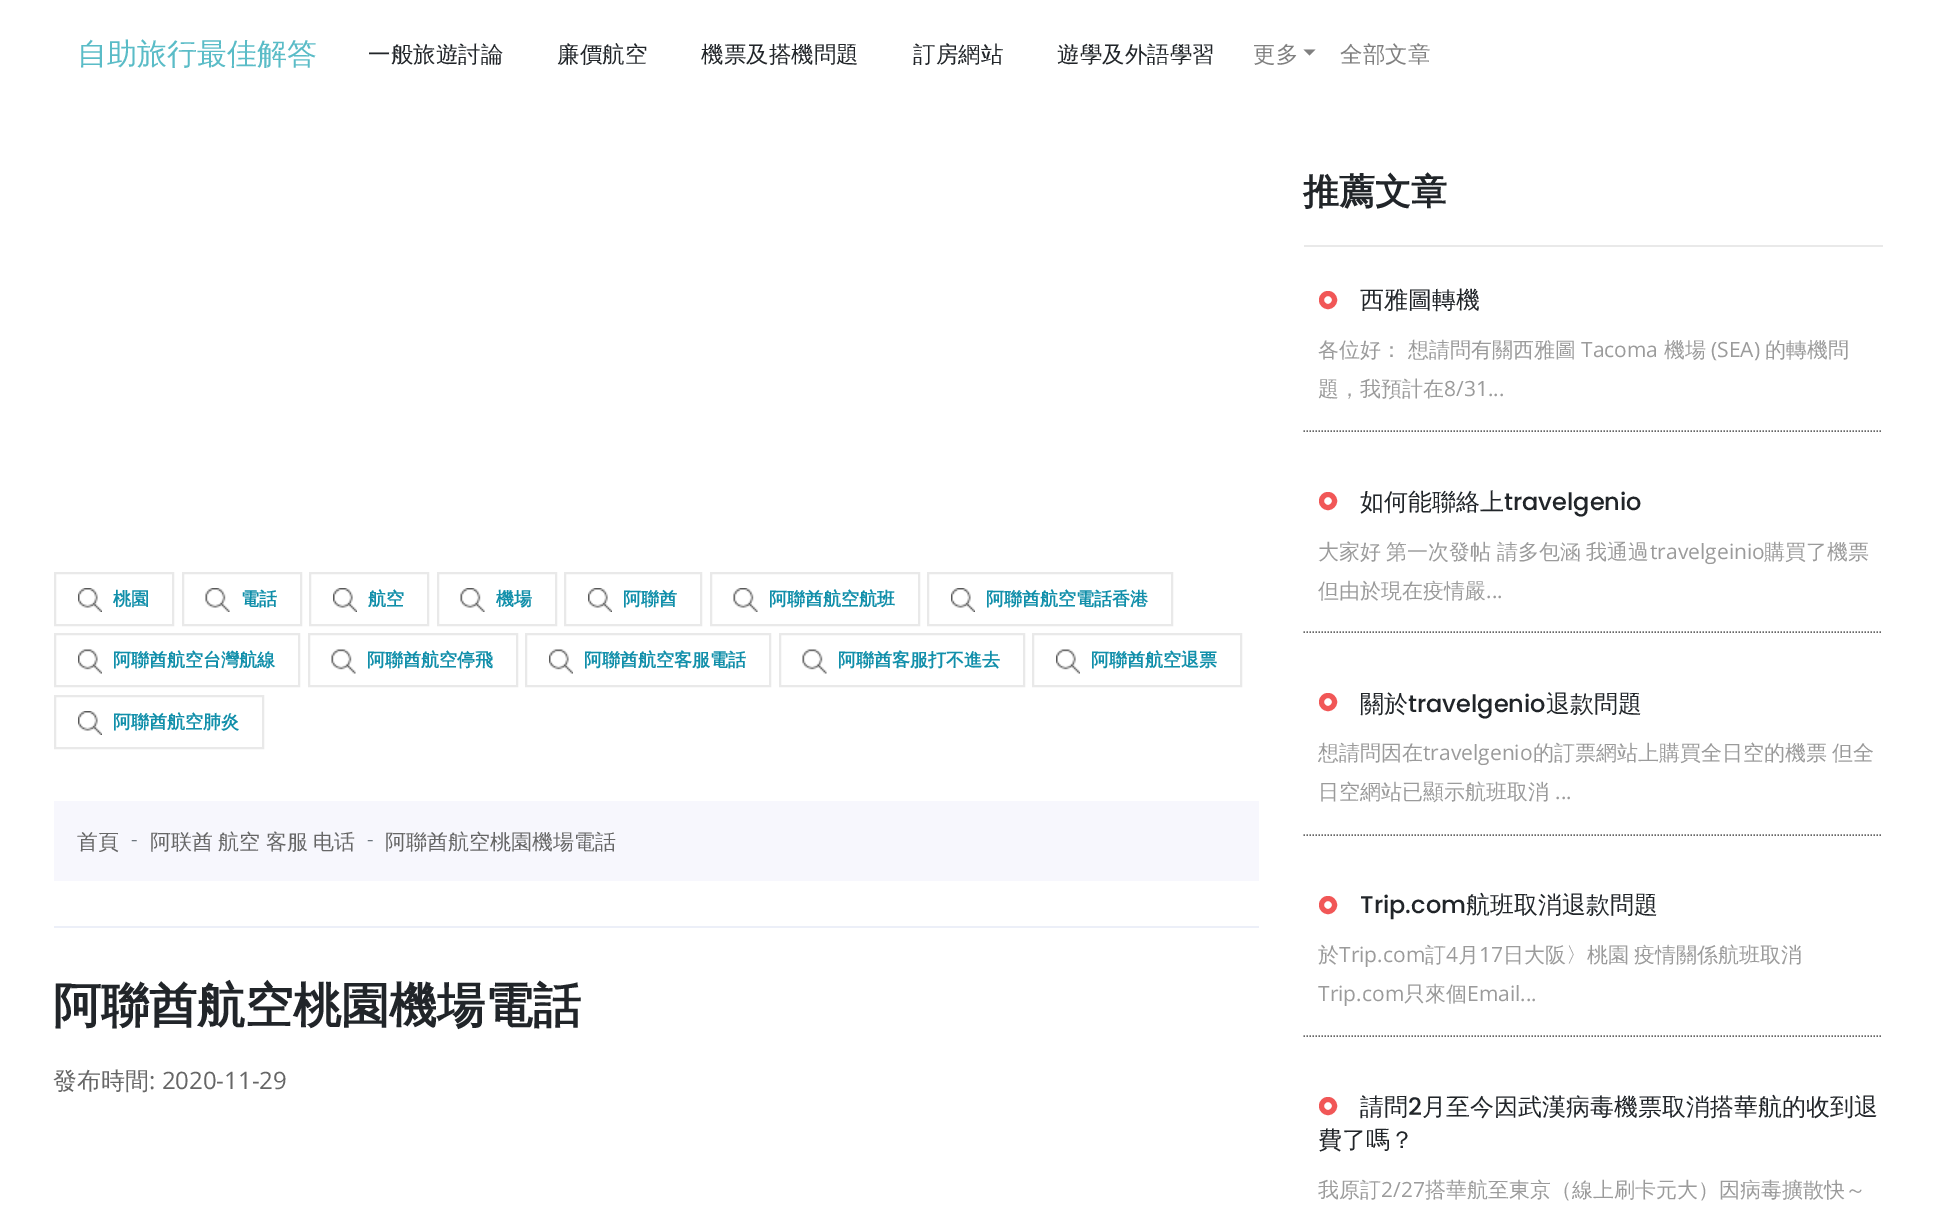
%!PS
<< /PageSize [1936 1223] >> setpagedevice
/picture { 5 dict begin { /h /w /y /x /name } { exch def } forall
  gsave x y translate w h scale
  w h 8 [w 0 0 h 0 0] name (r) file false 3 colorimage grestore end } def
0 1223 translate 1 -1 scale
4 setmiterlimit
1 setgray
0 0 1936 1223 rectfill
/WenQuanYiZenHei-Medium [30 0 0 -30 0 0] selectfont
0.353 0.737 0.78 setrgbcolor
77 64 moveto (自助旅行最佳解答) show
/WenQuanYiZenHei-Medium [22.5 0 0 -22.5 0 0] selectfont
0.129 0.145 0.161 setrgbcolor
368 62 moveto (一般旅遊討論) show
557 62 moveto (廉價航空) show
701 62 moveto (機票及搭機問題) show
913 62 moveto (訂房網站) show
1057 62 moveto (遊學及外語學習) show
0.502 setgray
1253 62 moveto (更多) show
newpath 1303.5 49.5 moveto 1315.5 49.5 lineto 1309.5 55.5 lineto closepath fill
1340 62 moveto (全部文章) show
0.914 setgray
2 setlinewidth
55 573 118 52 rectstroke
(img1.rgb) 78 588 24 24 picture
/WenQuanYiZenHei-Bold [18 0 0 -18 0 0] selectfont
0.067 0.561 0.667 setrgbcolor
113 605 moveto (桃園) show
0.914 setgray
183 573 118 52 rectstroke
(img2.rgb) 205 588 25 24 picture
0.067 0.561 0.667 setrgbcolor
241 605 moveto (電話) show
0.914 setgray
310 573 118 52 rectstroke
(img3.rgb) 333 588 24 24 picture
0.067 0.561 0.667 setrgbcolor
368 605 moveto (航空) show
0.914 setgray
438 573 118 52 rectstroke
(img2.rgb) 460 588 25 24 picture
0.067 0.561 0.667 setrgbcolor
496 605 moveto (機場) show
0.914 setgray
565 573 136 52 rectstroke
(img3.rgb) 588 588 24 24 picture
0.067 0.561 0.667 setrgbcolor
623 605 moveto (阿聯酋) show
0.914 setgray
711 573 208 52 rectstroke
(img4.rgb) 733 588 25 24 picture
0.067 0.561 0.667 setrgbcolor
769 605 moveto (阿聯酋航空航班) show
0.914 setgray
928 573 244 52 rectstroke
(img1.rgb) 951 588 24 24 picture
0.067 0.561 0.667 setrgbcolor
986 605 moveto (阿聯酋航空電話香港) show
0.914 setgray
55 634 244 52 rectstroke
(img5.rgb) 78 649 24 25 picture
0.067 0.561 0.667 setrgbcolor
113 666 moveto (阿聯酋航空台灣航線) show
0.914 setgray
309 634 208 52 rectstroke
(img6.rgb) 331 649 25 25 picture
0.067 0.561 0.667 setrgbcolor
367 666 moveto (阿聯酋航空停飛) show
0.914 setgray
526 634 244 52 rectstroke
(img5.rgb) 549 649 24 25 picture
0.067 0.561 0.667 setrgbcolor
584 666 moveto (阿聯酋航空客服電話) show
0.914 setgray
780 634 244 52 rectstroke
(img6.rgb) 802 649 25 25 picture
0.067 0.561 0.667 setrgbcolor
838 666 moveto (阿聯酋客服打不進去) show
0.914 setgray
1033 634 208 52 rectstroke
(img7.rgb) 1056 649 24 25 picture
0.067 0.561 0.667 setrgbcolor
1091 666 moveto (阿聯酋航空退票) show
0.914 setgray
55 696 208 52 rectstroke
(img1.rgb) 78 711 24 24 picture
0.067 0.561 0.667 setrgbcolor
113 728 moveto (阿聯酋航空肺炎) show
0.969 0.969 0.992 setrgbcolor
54 801 1205 80 rectfill
/WenQuanYiZenHei-Medium [21 0 0 -21 0 0] selectfont
0.4 setgray
77 849 moveto (首頁) show
/OpenSans-Regular [20 0 0 -20 0 0] selectfont
0.424 0.459 0.49 setrgbcolor
131 846 moveto (-) show
/WenQuanYiZenHei-Medium [21 0 0 -21 0 0] selectfont
0.4 setgray
150 849 moveto -1 0 32 (阿联酋 航空 客服 电话) widthshow
/OpenSans-Regular [20 0 0 -20 0 0] selectfont
0.424 0.459 0.49 setrgbcolor
367 846 moveto (-) show
/WenQuanYiZenHei-Medium [21 0 0 -21 0 0] selectfont
0.4 setgray
385 849 moveto (阿聯酋航空桃園機場電話) show
0.925 0.937 0.973 setrgbcolor
54 926 1205 2 rectfill
/WenQuanYiZenHei-Bold [48 0 0 -48 0 0] selectfont
0.129 0.145 0.161 setrgbcolor
53 1022 moveto (阿聯酋航空桃園機場電話) show
/WenQuanYiZenHei-Medium [24 0 0 -24 0 0] selectfont
0.4 setgray
53 1089 moveto (發布時間) show
/OpenSans-Regular [24 0 0 -24 0 0] selectfont
149 1089 moveto (: 2020-11-29) show
0.914 setgray
1304 245 579 2 rectfill
/WenQuanYiZenHei-Bold [36 0 0 -36 0 0] selectfont
0.129 0.145 0.161 setrgbcolor
1303 204 moveto (推薦文章) show
0.4 setgray
1.5 setlinewidth
[1.5 1.5] 0 setdash
newpath 1303.5 431 moveto 1882.5 431 lineto stroke
0.945 0.341 0.341 setrgbcolor
5 setlinewidth
[] 0 setdash
newpath 1328 300 6.5 0 360 arc closepath stroke
/WenQuanYiZenHei-Medium [24 0 0 -24 0 0] selectfont
0.129 0.145 0.161 setrgbcolor
1360 308 moveto (西雅圖轉機) show
/WenQuanYiZenHei-Medium [21 0 0 -21 0 0] selectfont
0.608 setgray
1318 357 moveto (各位好：) show
1408 357 moveto (想請問有關西雅圖) show
/OpenSans-Regular [21 0 0 -21 0 0] selectfont
1581 357 moveto (Tacoma) show
/WenQuanYiZenHei-Medium [21 0 0 -21 0 0] selectfont
1664 357 moveto (機場) show
/OpenSans-Regular [21 0 0 -21 0 0] selectfont
1711 357 moveto (\(SEA\)) show
/WenQuanYiZenHei-Medium [21 0 0 -21 0 0] selectfont
1765 357 moveto (的轉機問) show
1318 396 moveto (題，我預計在) show
/OpenSans-Regular [21 0 0 -21 0 0] selectfont
1444 396 moveto (8/31...) show
0.4 setgray
1.5 setlinewidth
[1.5 1.5] 0 setdash
newpath 1303.5 632 moveto 1882.5 632 lineto stroke
0.945 0.341 0.341 setrgbcolor
5 setlinewidth
[] 0 setdash
newpath 1328 501 6.5 0 360 arc closepath stroke
/WenQuanYiZenHei-Medium [24 0 0 -24 0 0] selectfont
0.129 0.145 0.161 setrgbcolor
1360 510 moveto (如何能聯絡上) show
/Poppins-Medium [24 0 0 -24 0 0] selectfont
1504 510 moveto (travelgenio) show
/WenQuanYiZenHei-Medium [21 0 0 -21 0 0] selectfont
0.608 setgray
1318 559 moveto -1 0 32 (大家好 第一次發帖 請多包涵 我通過) widthshow
/OpenSans-Regular [21 0 0 -21 0 0] selectfont
1650 559 moveto (travelgeinio) show
/WenQuanYiZenHei-Medium [21 0 0 -21 0 0] selectfont
1764 559 moveto (購買了機票) show
1318 598 moveto (但由於現在疫情嚴) show
/OpenSans-Regular [21 0 0 -21 0 0] selectfont
1486 598 moveto (...) show
0.4 setgray
1.5 setlinewidth
[1.5 1.5] 0 setdash
newpath 1303.5 835 moveto 1882.5 835 lineto stroke
0.945 0.341 0.341 setrgbcolor
5 setlinewidth
[] 0 setdash
newpath 1328 702 6.5 0 360 arc closepath stroke
/WenQuanYiZenHei-Medium [24 0 0 -24 0 0] selectfont
0.129 0.145 0.161 setrgbcolor
1360 712 moveto (關於) show
/Poppins-Medium [24 0 0 -24 0 0] selectfont
1408 712 moveto (travelgenio) show
/WenQuanYiZenHei-Medium [24 0 0 -24 0 0] selectfont
1546 712 moveto (退款問題) show
/WenQuanYiZenHei-Medium [21 0 0 -21 0 0] selectfont
0.608 setgray
1318 760 moveto (想請問因在) show
/OpenSans-Regular [21 0 0 -21 0 0] selectfont
1423 760 moveto (travelgenio) show
/WenQuanYiZenHei-Medium [21 0 0 -21 0 0] selectfont
1533 760 moveto -1 0 32 (的訂票網站上購買全日空的機票 但全) widthshow
1318 799 moveto (日空網站已顯示航班取消) show
/OpenSans-Regular [21 0 0 -21 0 0] selectfont
1555 799 moveto (...) show
0.4 setgray
1.5 setlinewidth
[1.5 1.5] 0 setdash
newpath 1303.5 1036 moveto 1882.5 1036 lineto stroke
0.945 0.341 0.341 setrgbcolor
5 setlinewidth
[] 0 setdash
newpath 1328 905 6.5 0 360 arc closepath stroke
/Poppins-Medium [24 0 0 -24 0 0] selectfont
0.129 0.145 0.161 setrgbcolor
1360 913 moveto (Trip.com) show
/WenQuanYiZenHei-Medium [24 0 0 -24 0 0] selectfont
1466 913 moveto (航班取消退款問題) show
/WenQuanYiZenHei-Medium [21 0 0 -21 0 0] selectfont
0.608 setgray
1318 962 moveto (於) show
/OpenSans-Regular [21 0 0 -21 0 0] selectfont
1339 962 moveto (Trip.com) show
/WenQuanYiZenHei-Medium [21 0 0 -21 0 0] selectfont
1425 962 moveto (訂) show
/OpenSans-Regular [21 0 0 -21 0 0] selectfont
1446 962 moveto (4) show
/WenQuanYiZenHei-Medium [21 0 0 -21 0 0] selectfont
1458 962 moveto (月) show
/OpenSans-Regular [21 0 0 -21 0 0] selectfont
1479 962 moveto (17) show
/WenQuanYiZenHei-Medium [21 0 0 -21 0 0] selectfont
1503 962 moveto -1 0 32 (日大阪〉桃園 疫情關係航班取消) widthshow
/OpenSans-Regular [21 0 0 -21 0 0] selectfont
1318 1001 moveto (Trip.com) show
/WenQuanYiZenHei-Medium [21 0 0 -21 0 0] selectfont
1404 1001 moveto (只來個) show
/OpenSans-Regular [21 0 0 -21 0 0] selectfont
1467 1001 moveto (Email...) show
0.945 0.341 0.341 setrgbcolor
newpath 1328 1106 6.5 0 360 arc closepath stroke
/WenQuanYiZenHei-Medium [24 0 0 -24 0 0] selectfont
0.129 0.145 0.161 setrgbcolor
1360 1115 moveto (請問) show
/Poppins-Medium [24 0 0 -24 0 0] selectfont
1408 1115 moveto (2) show
/WenQuanYiZenHei-Medium [24 0 0 -24 0 0] selectfont
1422 1115 moveto (月至今因武漢病毒機票取消搭華航的收到退) show
1318 1148 moveto (費了嗎？) show
/WenQuanYiZenHei-Medium [21 0 0 -21 0 0] selectfont
0.608 setgray
1318 1197 moveto (我原訂) show
/OpenSans-Regular [21 0 0 -21 0 0] selectfont
1381 1197 moveto (2/27) show
/WenQuanYiZenHei-Medium [21 0 0 -21 0 0] selectfont
1425 1197 moveto (搭華航至東京（線上刷卡元大）因病毒擴散快～) show
showpage
